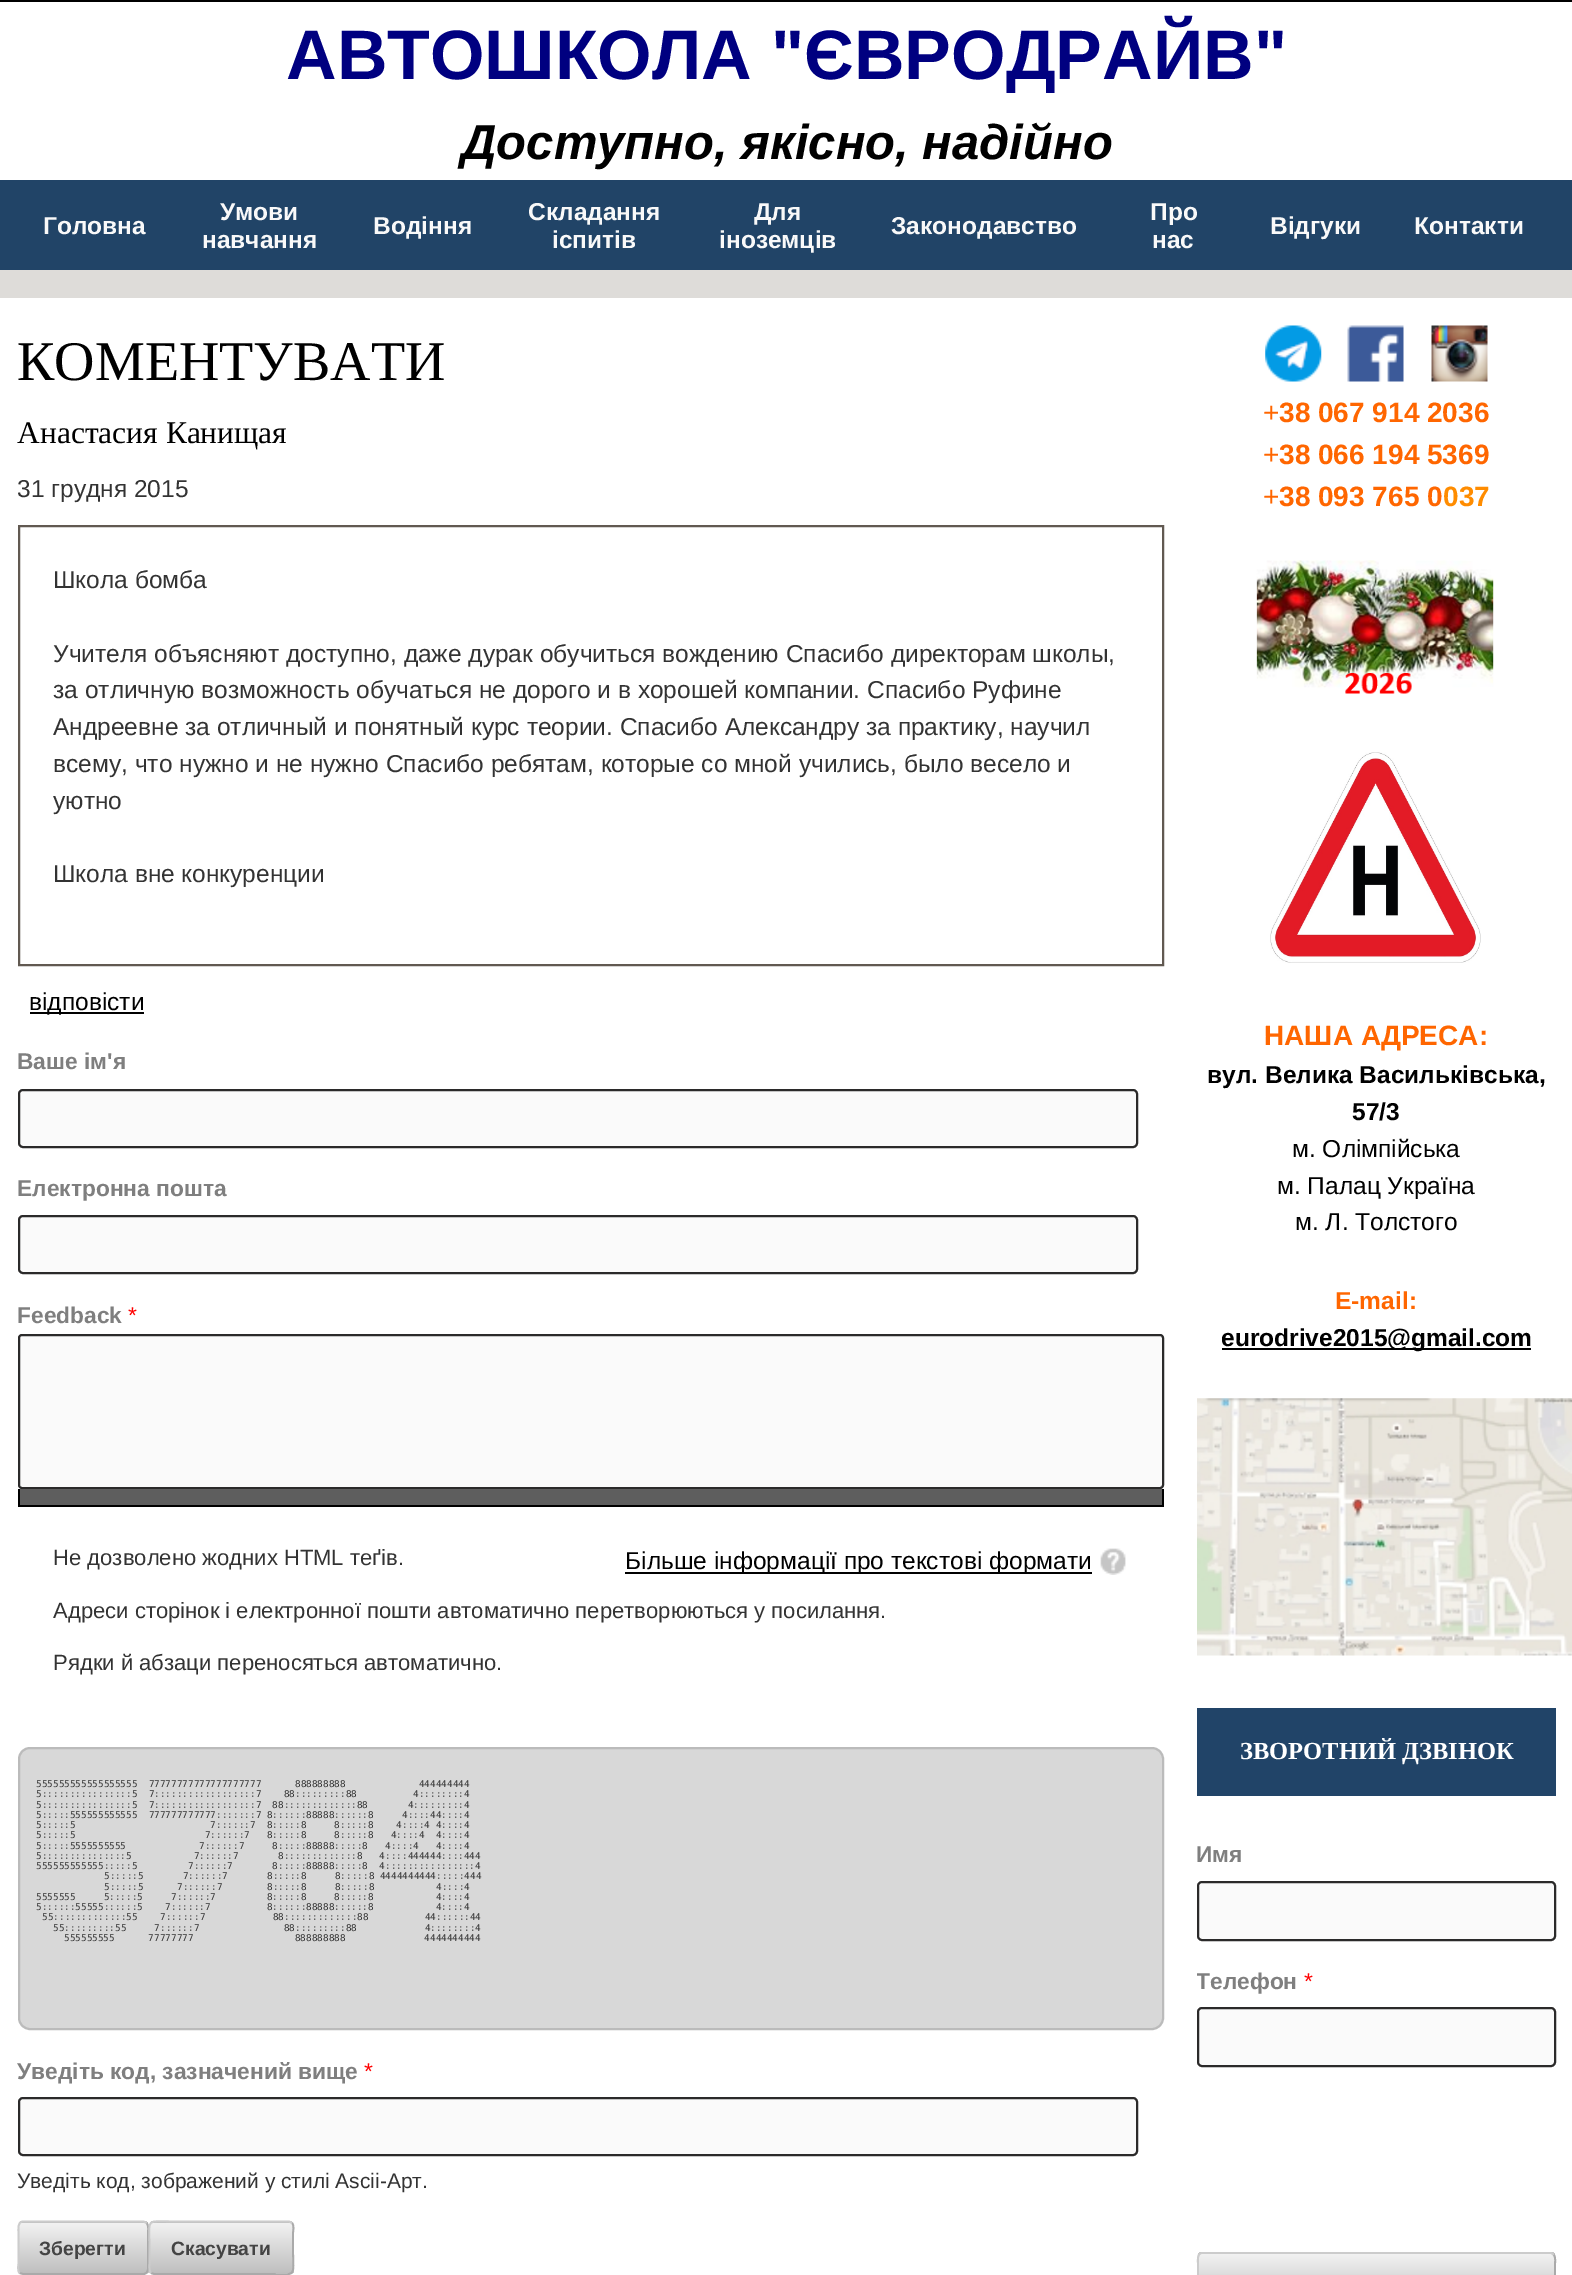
%!PS
<< /PageSize [1572 2275] /PageUsesTransparency true >> setpagedevice
/alpha { dup .setfillconstantalpha .setstrokeconstantalpha } def
/roundrect { 5 dict begin { /r /h /w /y /x } { exch def } forall
  x r add y moveto x w add y 2 copy h add r arct x w add y h add x 1 index r arct
  x y h add x y r arct x y 2 copy exch w add exch r arct closepath end } def
/picture { 5 dict begin { /h /w /y /x /name } { exch def } forall
  gsave x y translate w h scale
  w h 8 [w 0 0 h 0 0] name (r) file false 3 colorimage grestore end } def
0 .pushpdf14devicefilter
0 2275 translate 1 -1 scale
4 setmiterlimit
0.871 0.863 0.851 setrgbcolor
0 0 1572 2275 rectfill
1 setgray
0 2 1572 178 rectfill
0 setgray
0 0 1572 2 rectfill
/LiberationSans-Bold [70 0 0 -70 0 0] selectfont
0 0 0.502 setrgbcolor
286 79 moveto (АВТОШКОЛА "ЄВРОДРАЙВ") show
/LiberationSans-BoldItalic [49 0 0 -49 0 0] selectfont
0 setgray
461 159 moveto (Доступно, якісно, надійно) show
0.129 0.267 0.404 setrgbcolor
0 180 1572 90 rectfill
/LiberationSans-Bold [24.5 0 0 -24.5 0 0] selectfont
0.976 setgray
43 234 moveto (Головна) show
220 220 moveto (Умови) show
202 248 moveto (навчання) show
373 234 moveto (Водіння) show
528 220 moveto (Складання) show
552 248 moveto (іспитів) show
754 220 moveto (Для) show
719 248 moveto (іноземців) show
891 234 moveto (Законодавство) show
1150 220 moveto (Про) show
1152 248 moveto (нас) show
1270 234 moveto (Відгуки) show
1414 234 moveto (Контакти) show
1 setgray
0 298 1572 1977 rectfill
/LiberationSerif-Regular [56 0 0 -56 0 0] selectfont
0 setgray
17 380 moveto (КОМЕНТУВАТИ) show
/LiberationSerif-Regular [31.5 0 0 -31.5 0 0] selectfont
17 443 moveto (Анастасия Канищая) show
/LiberationSans-Regular [24.5 0 0 -24.5 0 0] selectfont
0.2 setgray
17 497 moveto (31 грудня 2015) show
0.38 0.349 0.318 setrgbcolor
2 setlinewidth
19 526 1144 439 rectstroke
0.2 setgray
53 588 moveto (Школа бомба) show
53 662 moveto (Учителя объясняют доступно, даже дурак обучиться вождению Спасибо директорам школы,) show
53 698 moveto (за отличную возможность обучаться не дорого и в хорошей компании. Спасибо Руфине) show
53 735 moveto (Андреевне за отличный и понятный курс теории. Спасибо Александру за практику, научил) show
53 772 moveto (всему, что нужно и не нужно Спасибо ребятам, которые со мной учились, было весело и) show
53 809 moveto (уютно) show
53 882 moveto (Школа вне конкуренции) show
0 setgray
30 1012 114 2 rectfill
29 1010 moveto (відповісти) show
/LiberationSans-Bold [22.75 0 0 -22.75 0 0] selectfont
0.498 setgray
17 1069 moveto (Ваше ім'я) show
0.98 setgray
19 1090 1118 57 4 roundrect gsave fill grestore
0.169 0.165 0.165 setrgbcolor
stroke
0.498 setgray
17 1196 moveto (Електронна пошта) show
0.98 setgray
19 1216 1118 57 4 roundrect gsave fill grestore
0.169 0.165 0.165 setrgbcolor
stroke
0.498 setgray
17 1323 moveto (Feedback) show
/LiberationSans-Regular [22.75 0 0 -22.75 0 0] selectfont
1 0 0 setrgbcolor
128 1323 moveto (*) show
0.98 setgray
19 1335 1144 153 3 roundrect gsave fill grestore
0.169 0.165 0.165 setrgbcolor
stroke
0.369 setgray
20 1489 1142 16 rectfill
0 setgray
1162 1489 2 18 rectfill
18 1505 1146 2 rectfill
18 1489 2 18 rectfill
/LiberationSans-Regular [22.05 0 0 -22.05 0 0] selectfont
0.2 setgray
53 1565 moveto (Не дозволено жодних HTML теґів.) show
53 1618 moveto (Адреси сторінок і електронної пошти автоматично перетворюються у посилання.) show
53 1670 moveto (Рядки й абзаци переносяться автоматично.) show
0 setgray
625 1572 467 2 rectfill
/LiberationSans-Regular [24.5 0 0 -24.5 0 0] selectfont
625 1569 moveto (Більше інформації про текстові формати) show
(img1.rgb) 1100 1548 26 27 picture
0.847 setgray
19 1748 1144 281 11 roundrect gsave fill grestore
0.733 setgray
stroke
/DejaVuSansMono-Regular [9.35 0 0 -9.35 0 0] selectfont
0.2 setgray
36 1787 moveto (555555555555555555  77777777777777777777      888888888             444444444) show
36 1797 moveto (5::::::::::::::::5  7::::::::::::::::::7    88:::::::::88          4::::::::4) show
36 1808 moveto (5::::::::::::::::5  7::::::::::::::::::7  88:::::::::::::88       4:::::::::4) show
36 1818 moveto (5:::::555555555555  777777777777:::::::7 8::::::88888::::::8     4::::44::::4) show
36 1828 moveto (5:::::5                        7::::::7  8:::::8     8:::::8    4::::4 4::::4) show
36 1838 moveto (5:::::5                       7::::::7   8:::::8     8:::::8   4::::4  4::::4) show
36 1849 moveto (5:::::5555555555             7::::::7     8:::::88888:::::8   4::::4   4::::4) show
36 1859 moveto (5:::::::::::::::5           7::::::7       8:::::::::::::8   4::::444444::::444) show
36 1869 moveto (555555555555:::::5         7::::::7       8:::::88888:::::8  4::::::::::::::::4) show
104 1879 moveto (5:::::5       7::::::7       8:::::8     8:::::8 4444444444:::::444) show
104 1890 moveto (5:::::5      7::::::7        8:::::8     8:::::8           4::::4) show
36 1900 moveto (5555555     5:::::5     7::::::7         8:::::8     8:::::8           4::::4) show
36 1910 moveto (5::::::55555::::::5    7::::::7          8::::::88888::::::8           4::::4) show
42 1920 moveto (55:::::::::::::55    7::::::7            88:::::::::::::88          44::::::44) show
53 1931 moveto (55:::::::::55     7::::::7               88:::::::::88            4::::::::4) show
64 1941 moveto (555555555      77777777                  888888888              4444444444) show
/LiberationSans-Bold [22.75 0 0 -22.75 0 0] selectfont
0.498 setgray
17 2079 moveto (Уведіть код, зазначений вище) show
/LiberationSans-Regular [22.75 0 0 -22.75 0 0] selectfont
1 0 0 setrgbcolor
364 2079 moveto (*) show
0.98 setgray
19 2098 1118 57 4 roundrect gsave fill grestore
0.169 0.165 0.165 setrgbcolor
stroke
/LiberationSans-Regular [21 0 0 -21 0 0] selectfont
0.2 setgray
17 2188 moveto (Уведіть код, зображений у стилі Ascii-Арт.) show
0.933 setgray
18 2221 131 54 5 roundrect fill
gsave
18 2221 131 54 5 roundrect clip newpath
0.2 alpha
gsave newpath 18 2221 moveto 149 2221 lineto 149 2223 lineto 18 2223 lineto closepath clip newpath
<< /ShadingType 2 /ColorSpace /DeviceRGB /Coords [83 2172 83 2223] /Extend [true true] /Function << /FunctionType 2 /Domain [0 1] /C0 [1 1 1] /C1 [0 0 0] /N 1 >> >> shfill grestore
gsave newpath 18 2223 moveto 149 2223 lineto 149 2273 lineto 18 2273 lineto closepath clip newpath
<< /ShadingType 2 /ColorSpace /DeviceRGB /Coords [83 2223 83 2273] /Extend [true true] /Function << /FunctionType 2 /Domain [0 1] /C0 [1 1 1] /C1 [0 0 0] /N 1 >> >> shfill grestore
gsave newpath 18 2273 moveto 149 2273 lineto 149 2275 lineto 18 2275 lineto closepath clip newpath
<< /ShadingType 2 /ColorSpace /DeviceRGB /Coords [83 2273 83 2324] /Extend [true true] /Function << /FunctionType 2 /Domain [0 1] /C0 [1 1 1] /C1 [0 0 0] /N 1 >> >> shfill grestore
grestore
0.667 setgray
1.8 setlinewidth
newpath 146.5 2223 moveto 149 2225.5 148 2231 148 2233.5 curveto 148 2262.5 lineto 148 2265.5 149.5 2274 143.5 2274 curveto 23 2274 lineto 19.5 2273 lineto stroke
0.8 setgray
newpath 19.5 2273 moveto 17 2270.5 18.5 2264.5 18.5 2262.5 curveto 18.5 2233.5 lineto 18.5 2230 17 2221.5 23 2221.5 curveto 143.5 2221.5 lineto 146.5 2223 lineto stroke
/LiberationSans-Bold [19.25 0 0 -19.25 0 0] selectfont
0.267 setgray
39 2255 moveto (Зберегти) show
0.933 setgray
149 2221 145 54 5 roundrect fill
gsave
149 2221 145 54 5 roundrect clip newpath
0.2 alpha
gsave newpath 149 2221 moveto 294 2221 lineto 294 2223 lineto 149 2223 lineto closepath clip newpath
<< /ShadingType 2 /ColorSpace /DeviceRGB /Coords [221 2172 221 2223] /Extend [true true] /Function << /FunctionType 2 /Domain [0 1] /C0 [1 1 1] /C1 [0 0 0] /N 1 >> >> shfill grestore
gsave newpath 149 2223 moveto 294 2223 lineto 294 2273 lineto 149 2273 lineto closepath clip newpath
<< /ShadingType 2 /ColorSpace /DeviceRGB /Coords [221 2223 221 2273] /Extend [true true] /Function << /FunctionType 2 /Domain [0 1] /C0 [1 1 1] /C1 [0 0 0] /N 1 >> >> shfill grestore
gsave newpath 149 2273 moveto 294 2273 lineto 294 2275 lineto 149 2275 lineto closepath clip newpath
<< /ShadingType 2 /ColorSpace /DeviceRGB /Coords [221 2273 221 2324] /Extend [true true] /Function << /FunctionType 2 /Domain [0 1] /C0 [1 1 1] /C1 [0 0 0] /N 1 >> >> shfill grestore
grestore
0.667 setgray
newpath 292 2223 moveto 294.5 2225.5 293 2231 293 2233.5 curveto 293 2248 lineto 293 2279.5 298.5 2274 266.5 2274 curveto 154 2274 lineto 151 2273 lineto stroke
0.8 setgray
newpath 151 2273 moveto 148.5 2270.5 149.5 2264.5 149.5 2262.5 curveto 149.5 2248 lineto 149.5 2216.5 144 2221.5 176.5 2221.5 curveto 289 2221.5 lineto 292 2223 lineto stroke
0.267 setgray
171 2255 moveto (Скасувати) show
(img2.rgb) 1265 325 57 57 picture
(img3.rgb) 1347 325 57 57 picture
(img4.rgb) 1431 325 57 57 picture
/LiberationSans-Regular [28 0 0 -28 0 0] selectfont
1 0.4 0 setrgbcolor
1263 422 moveto (+) show
/LiberationSans-Bold [28 0 0 -28 0 0] selectfont
1279 422 moveto (38 067 914 2036) show
/LiberationSans-Regular [28 0 0 -28 0 0] selectfont
1263 464 moveto (+) show
/LiberationSans-Bold [28 0 0 -28 0 0] selectfont
1279 464 moveto (38 066 194 5369) show
/LiberationSans-Regular [28 0 0 -28 0 0] selectfont
1263 506 moveto (+) show
/LiberationSans-Bold [28 0 0 -28 0 0] selectfont
1279 506 moveto (38 093 765 0) show
1 0.549 0 setrgbcolor
1443 506 moveto (037) show
(img5.rgb) 1256 560 238 134 picture
(img6.rgb) 1270 752 211 211 picture
1 0.4 0 setrgbcolor
1264 1045 moveto (НАША АДРЕСА:) show
/LiberationSans-Bold [24.5 0 0 -24.5 0 0] selectfont
0 setgray
1207 1083 moveto (вул. Велика Васильківська,) show
1352 1120 moveto (57/3) show
/LiberationSans-Regular [24.5 0 0 -24.5 0 0] selectfont
1292 1157 moveto (м. Олімпійська) show
1277 1194 moveto (м. Палац Україна) show
1295 1230 moveto (м. Л. Толстого) show
/LiberationSans-Bold [24.5 0 0 -24.5 0 0] selectfont
1 0.4 0 setrgbcolor
1335 1309 moveto (E-mail:) show
0 setgray
1222 1348 309 2 rectfill
1221 1346 moveto (eurodrive2015@gmail.com) show
(img7.rgb) 1197 1398 375 258 picture
0.129 0.267 0.408 setrgbcolor
1197 1708 359 88 rectfill
/LiberationSerif-Bold [24.5 0 0 -24.5 0 0] selectfont
1 setgray
1240 1759 moveto (ЗВОРОТНИЙ ДЗВІНОК) show
/LiberationSans-Bold [22.75 0 0 -22.75 0 0] selectfont
0.498 setgray
1196 1862 moveto (Имя) show
0.98 setgray
1198 1882 357 58 4 roundrect gsave fill grestore
0.169 0.165 0.165 setrgbcolor
2 setlinewidth
stroke
gsave
1197 1813 359 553 rectclip
0.498 setgray
1196 1989 moveto (Телефон) show
grestore
/LiberationSans-Regular [22.75 0 0 -22.75 0 0] selectfont
1 0 0 setrgbcolor
1304 1989 moveto (*) show
0.98 setgray
1198 2008 357 58 4 roundrect gsave fill grestore
0.169 0.165 0.165 setrgbcolor
stroke
0.933 setgray
1197 2252 359 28 5 roundrect fill
gsave
1197 2252 359 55 5 roundrect clip newpath
0.2 alpha
gsave newpath 1197 2252 moveto 1556 2252 lineto 1556 2254 lineto 1197 2254 lineto closepath clip newpath
<< /ShadingType 2 /ColorSpace /DeviceRGB /Coords [1376 2203 1376 2254] /Extend [true true] /Function << /FunctionType 2 /Domain [0 1] /C0 [1 1 1] /C1 [0 0 0] /N 1 >> >> shfill grestore
grestore
0.2 alpha
gsave newpath 1197 2254 moveto 1556 2254 lineto 1556 2275 lineto 1197 2275 lineto closepath clip newpath
<< /ShadingType 2 /ColorSpace /DeviceRGB /Coords [1376 2254 1376 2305] /Extend [true true] /Function << /FunctionType 2 /Domain [0 1] /C0 [1 1 1] /C1 [0 0 0] /N 1 >> >> shfill grestore
1 alpha
0.667 setgray
1.8 setlinewidth
newpath 1553.5 2254.5 moveto 1556 2257 1555 2262.5 1555 2265 curveto 1555 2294 lineto 1555 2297 1556.5 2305.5 1550.5 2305.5 curveto 1202 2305.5 lineto 1199 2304.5 lineto stroke
0.8 setgray
newpath 1199 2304.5 moveto 1196.5 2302 1198 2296 1198 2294 curveto 1198 2265 lineto 1198 2261.5 1196.5 2253 1202 2253 curveto 1551 2253 lineto 1553.5 2254.5 lineto stroke
.poppdf14devicefilter showpage
